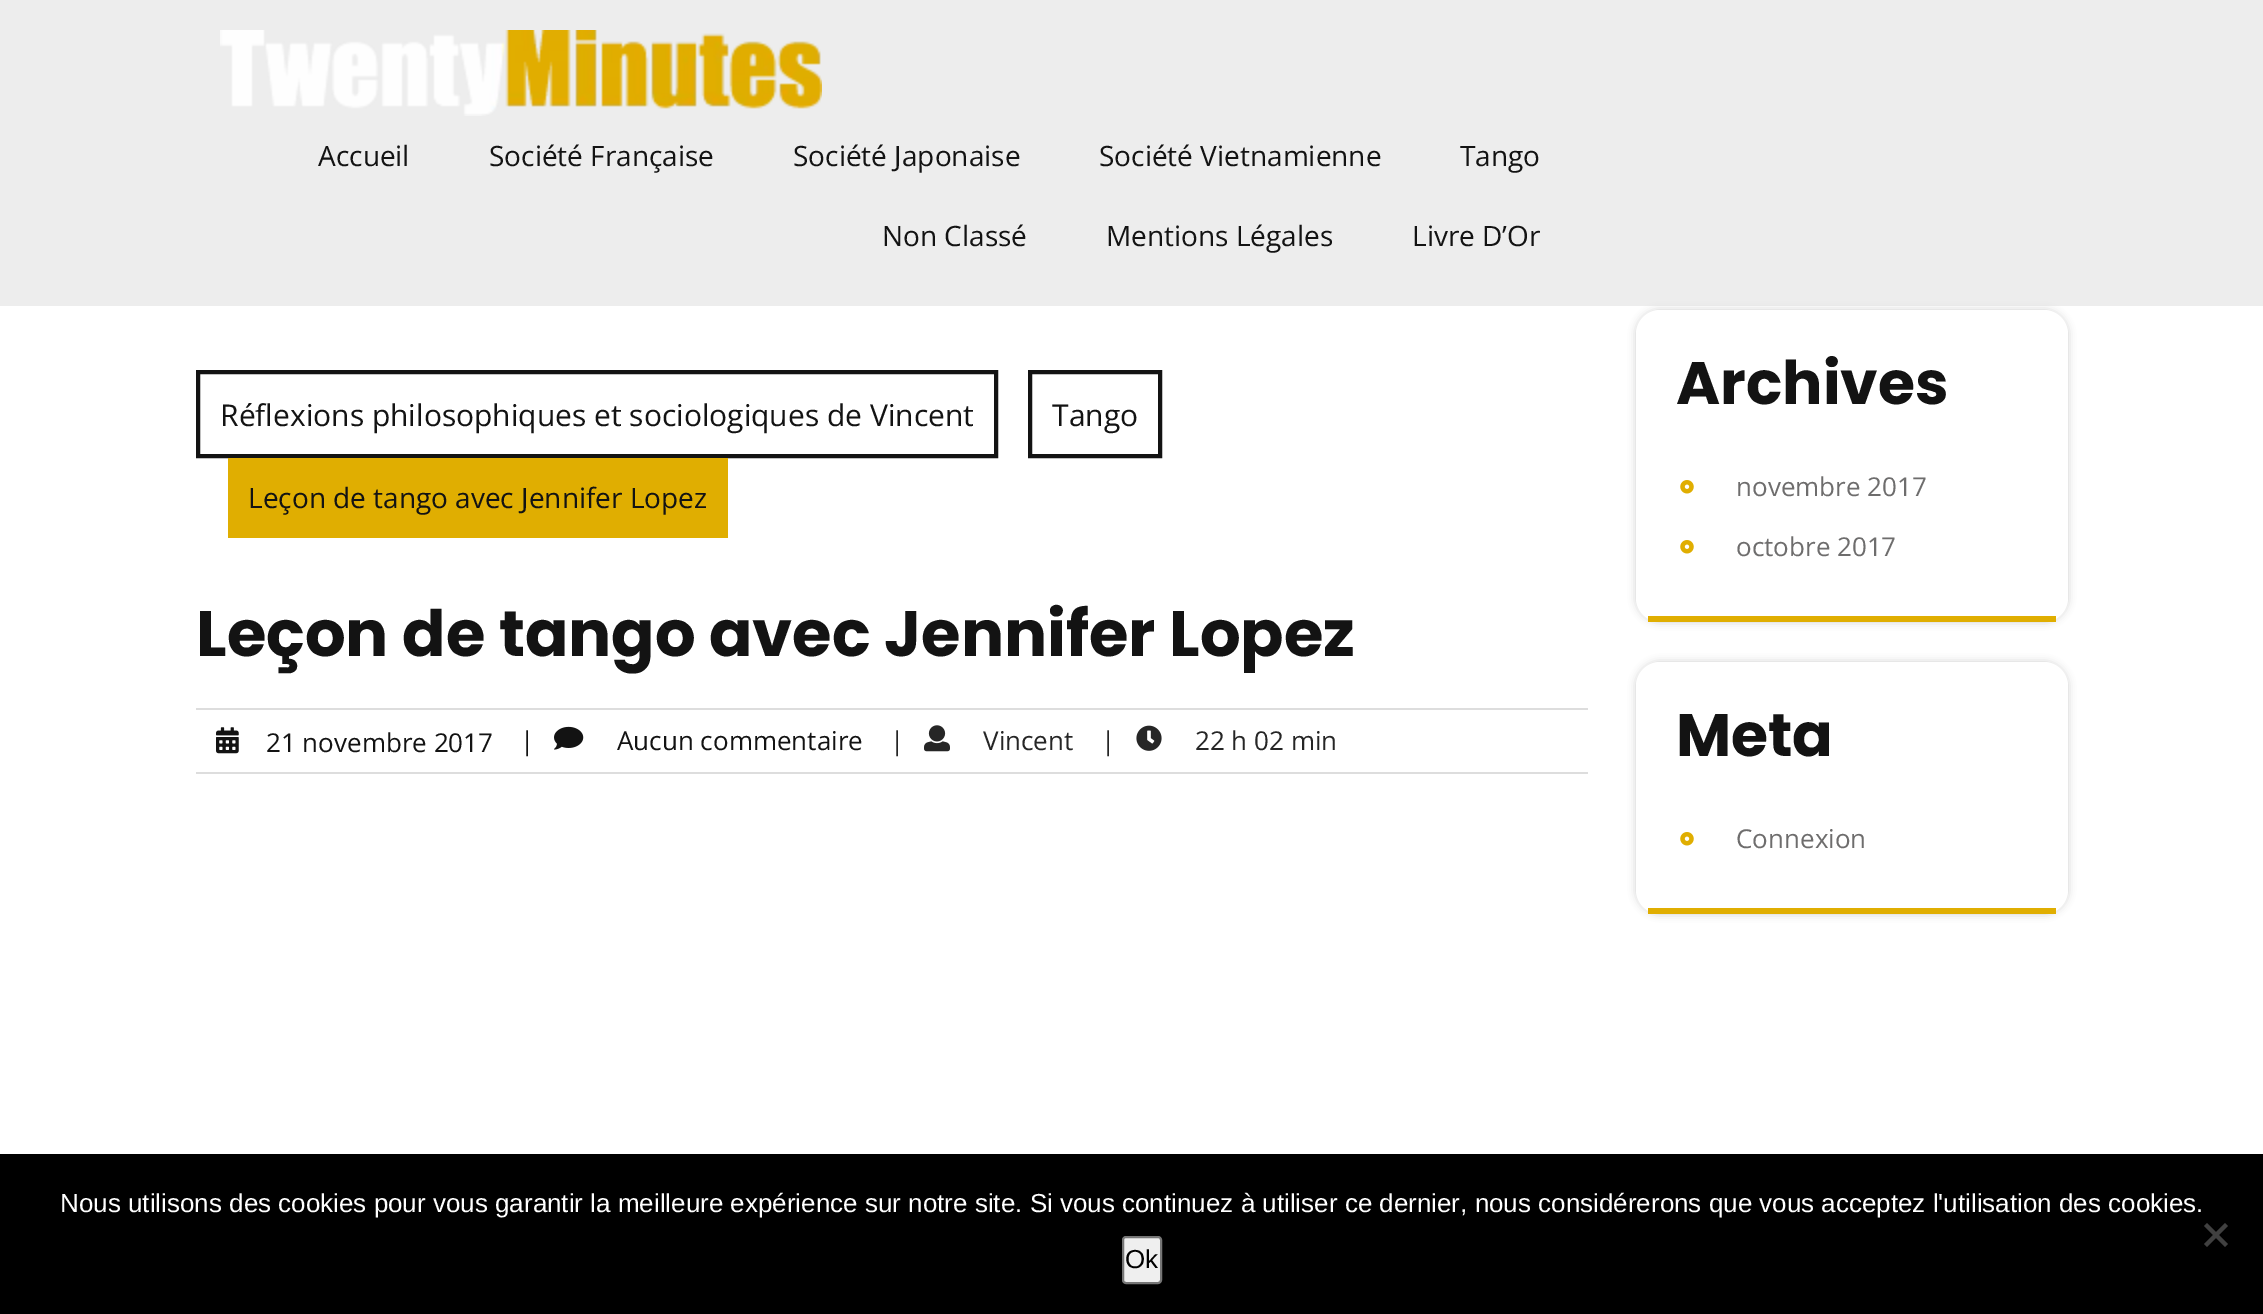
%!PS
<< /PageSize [2263 1314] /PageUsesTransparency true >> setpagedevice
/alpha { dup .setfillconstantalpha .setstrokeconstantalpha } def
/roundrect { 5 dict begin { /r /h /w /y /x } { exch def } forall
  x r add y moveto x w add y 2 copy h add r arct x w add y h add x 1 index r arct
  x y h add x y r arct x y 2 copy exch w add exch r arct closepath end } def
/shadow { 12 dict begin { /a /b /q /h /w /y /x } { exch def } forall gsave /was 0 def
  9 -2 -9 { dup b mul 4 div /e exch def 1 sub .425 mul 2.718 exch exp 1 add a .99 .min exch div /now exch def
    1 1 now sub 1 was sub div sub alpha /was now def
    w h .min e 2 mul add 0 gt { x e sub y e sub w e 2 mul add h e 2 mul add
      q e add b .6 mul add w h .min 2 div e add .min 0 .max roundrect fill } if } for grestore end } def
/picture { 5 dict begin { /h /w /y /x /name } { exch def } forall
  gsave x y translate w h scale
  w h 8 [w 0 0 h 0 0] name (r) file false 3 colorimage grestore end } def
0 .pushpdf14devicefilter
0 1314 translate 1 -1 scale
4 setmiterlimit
1 setgray
0 0 2263 1314 rectfill
0.929 setgray
0 0 2263 306 rectfill
(img1.rgb) 220 30 602 86 picture
/OpenSans-Regular [28 0 0 -28 0 0] selectfont
0.075 setgray
318 166 moveto (Accueil) show
489 166 moveto (Société Française) show
793 166 moveto (Société Japonaise) show
1099 166 moveto (Société Vietnamienne) show
1460 166 moveto (Tango) show
882 246 moveto (Non Classé) show
1106 246 moveto (Mentions Légales) show
1412 246 moveto (Livre D’Or) show
4 setlinewidth
198 372 798 84 rectstroke
/OpenSans-Regular [30 0 0 -30 0 0] selectfont
220 426 moveto (Réflexions philosophiques et sociologiques de Vincent) show
1030 372 130 84 rectstroke
1052 426 moveto (Tango) show
0.878 0.682 0.004 setrgbcolor
228 458 500 80 rectfill
/OpenSans-Regular [28 0 0 -28 0 0] selectfont
0.075 setgray
248 508 moveto (Leçon de tango avec Jennifer Lopez) show
/Poppins-Bold [64 0 0 -64 0 0] selectfont
196 656 moveto (Leçon de tango avec Jennifer Lopez) show
0.867 setgray
196 708 1392 2 rectfill
196 772 1392 2 rectfill
(img2.rgb) 216 727 23 27 picture
/OpenSans-Regular [26 0 0 -26 0 0] selectfont
0.075 setgray
266 752 moveto (21 novembre 2017) show
520 750 moveto (|) show
(img3.rgb) 554 726 30 24 picture
617 750 moveto (Aucun commentaire) show
0.149 setgray
890 750 moveto (|) show
(img4.rgb) 924 725 26 27 picture
983 750 moveto (Vincent) show
1101 750 moveto (|) show
(img5.rgb) 1136 725 26 26 picture
1195 750 moveto (22 h 02 min) show
0.812 setgray
1636 310 432 312 24 4 1 shadow
1 setgray
1636 310 432 312 24 roundrect fill
0.878 0.682 0.004 setrgbcolor
1648 616 408 6 rectfill
/Poppins-Bold [60 0 0 -60 0 0] selectfont
0.075 setgray
1676 404 moveto (Archives) show
(img6.rgb) 1680 480 14 14 picture
/OpenSans-Regular [26 0 0 -26 0 0] selectfont
0.431 0.427 0.427 setrgbcolor
1736 496 moveto (novembre 2017) show
(img6.rgb) 1680 540 14 14 picture
1736 556 moveto (octobre 2017) show
0.812 setgray
1636 662 432 252 24 4 1 shadow
1 setgray
1636 662 432 252 24 roundrect fill
0.878 0.682 0.004 setrgbcolor
1648 908 408 6 rectfill
/Poppins-Bold [60 0 0 -60 0 0] selectfont
0.075 setgray
1676 756 moveto (Meta) show
(img6.rgb) 1680 832 14 14 picture
/OpenSans-Regular [26 0 0 -26 0 0] selectfont
0.431 0.427 0.427 setrgbcolor
1736 848 moveto (Connexion) show
0 setgray
0 1154 2263 160 rectfill
/LiberationSans-Regular [26 0 0 -26 0 0] selectfont
1 setgray
60 1212 moveto (Nous utilisons des cookies pour vous garantir la meilleure expérience sur notre site. Si vous continuez à utiliser ce dernier, nous considérerons que vous acceptez l'utilisation des cookies.) show
0.251 setgray
newpath 2225 1223 moveto 2228 1226 lineto 2207 1247 lineto 2204 1244 lineto closepath fill
newpath 2204 1226 moveto 2207 1223 lineto 2228 1244 lineto 2225 1247 lineto closepath fill
0.937 setgray
1123 1237 38 46 3 roundrect gsave fill grestore
0.463 setgray
2 setlinewidth
stroke
0 setgray
1125 1268 moveto (Ok) show
.poppdf14devicefilter showpage
